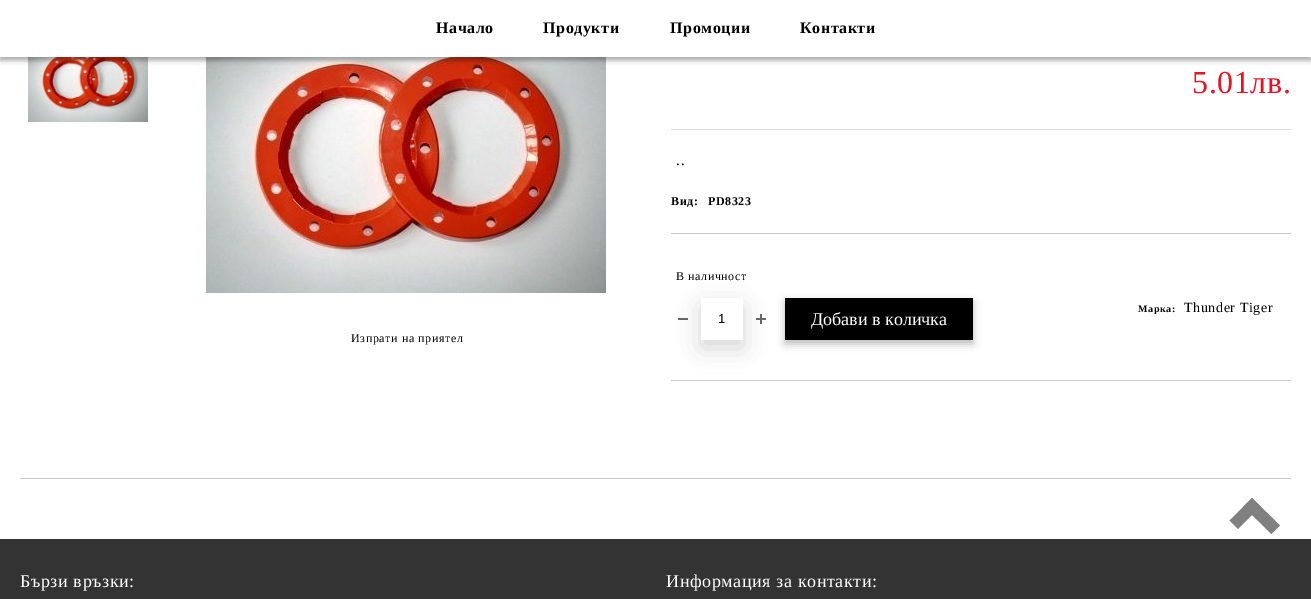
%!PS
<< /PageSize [1311 599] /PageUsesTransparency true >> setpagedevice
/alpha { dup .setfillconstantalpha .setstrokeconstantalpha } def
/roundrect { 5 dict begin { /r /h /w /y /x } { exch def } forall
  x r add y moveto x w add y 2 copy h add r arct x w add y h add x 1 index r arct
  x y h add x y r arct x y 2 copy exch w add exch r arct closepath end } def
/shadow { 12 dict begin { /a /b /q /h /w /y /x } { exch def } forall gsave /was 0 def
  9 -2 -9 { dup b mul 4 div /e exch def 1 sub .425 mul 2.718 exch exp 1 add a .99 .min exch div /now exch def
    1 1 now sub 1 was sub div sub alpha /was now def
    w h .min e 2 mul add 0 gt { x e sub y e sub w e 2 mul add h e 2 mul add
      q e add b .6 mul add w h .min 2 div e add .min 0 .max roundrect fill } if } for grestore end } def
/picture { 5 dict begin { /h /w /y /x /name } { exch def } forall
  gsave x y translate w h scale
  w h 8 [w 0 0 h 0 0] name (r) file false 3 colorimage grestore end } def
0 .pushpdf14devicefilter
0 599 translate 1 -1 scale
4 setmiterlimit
1 setgray
0 0 1311 599 rectfill
(img1.rgb) 28 57 120 65 picture
(img2.rgb) 206 57 400 236 picture
0 setgray
0 3 1311 57 0 2.5 0.25 shadow
0 4 1311 57 0 2 0.1 shadow
1 setgray
0 0 1311 57 rectfill
/LiberationSerif-Bold [16 0 0 -16 0 0] selectfont
0 setgray
436 33 moveto 0.6 0 (Начало) ashow
543 33 moveto 0.6 0 (Продукти) ashow
670 33 moveto 0.6 0 (Промоции) ashow
800 33 moveto 0.6 0 (Контакти) ashow
/LiberationSerif-Regular [32 0 0 -32 0 0] selectfont
0.91 0.071 0.145 setrgbcolor
1192 93 moveto 0.6 0 (5.01лв.) ashow
0.867 setgray
671 129 620 1 rectfill
/LiberationSerif-Regular [15 0 0 -15 0 0] selectfont
0 setgray
676 165 moveto 1 0 (..) ashow
/LiberationSerif-Bold [12 0 0 -12 0 0] selectfont
671 205 moveto 0.6 0 (Вид:) ashow
708 205 moveto 0.6 0 (PD8323) ashow
0.8 setgray
671 233 620 1 rectfill
/LiberationSerif-Regular [12 0 0 -12 0 0] selectfont
0 setgray
676 280 moveto 0.6 0 (В наличност) ashow
/LiberationSerif-Bold [10 0 0 -10 0 0] selectfont
1138 312 moveto 0.6 0 (Марка:) ashow
/LiberationSerif-Regular [14 0 0 -14 0 0] selectfont
1184 312 moveto 0.6 0 (Thunder Tiger) ashow
gsave
newpath 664 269 moveto 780 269 lineto 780 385 lineto 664 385 lineto closepath 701 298 moveto 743 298 lineto 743 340 lineto 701 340 lineto closepath eoclip newpath
701 306 42 42 0 12 0.16 shadow
grestore
0.4 setgray
678 318 10 2 rectfill
/LiberationSans-Regular [13 0 0 -13 0 0] selectfont
0 setgray
718 323 moveto (1) show
0.4 setgray
756 318 10 2 rectfill
760 314 2 10 rectfill
0 setgray
785 302 188 42 0 4 0.26 shadow
785 298 188 42 rectfill
/LiberationSerif-Regular [18 0 0 -18 0 0] selectfont
1 setgray
811 325 moveto (Добави в количка) show
0.8 setgray
671 380 620 1 rectfill
/LiberationSerif-Regular [12 0 0 -12 0 0] selectfont
0 setgray
351 342 moveto 0.6 0 (Изпрати на приятел) ashow
0.8 setgray
20 478 1271 1 rectfill
0.2 setgray
0 539 1311 60 rectfill
/LiberationSerif-Regular [18 0 0 -18 0 0] selectfont
1 setgray
20 587 moveto 0.6 0 (Бързи връзки:) ashow
666 587 moveto 0.6 0 (Информация за контакти:) ashow
0.502 setgray
newpath 1238 529 moveto 1229.5 520.5 lineto 1252 498 lineto 1260.5 506.5 lineto closepath fill
newpath 1271.5 534 moveto 1243.5 506.5 lineto 1252 498 lineto 1280 525.5 lineto closepath fill
.poppdf14devicefilter showpage
